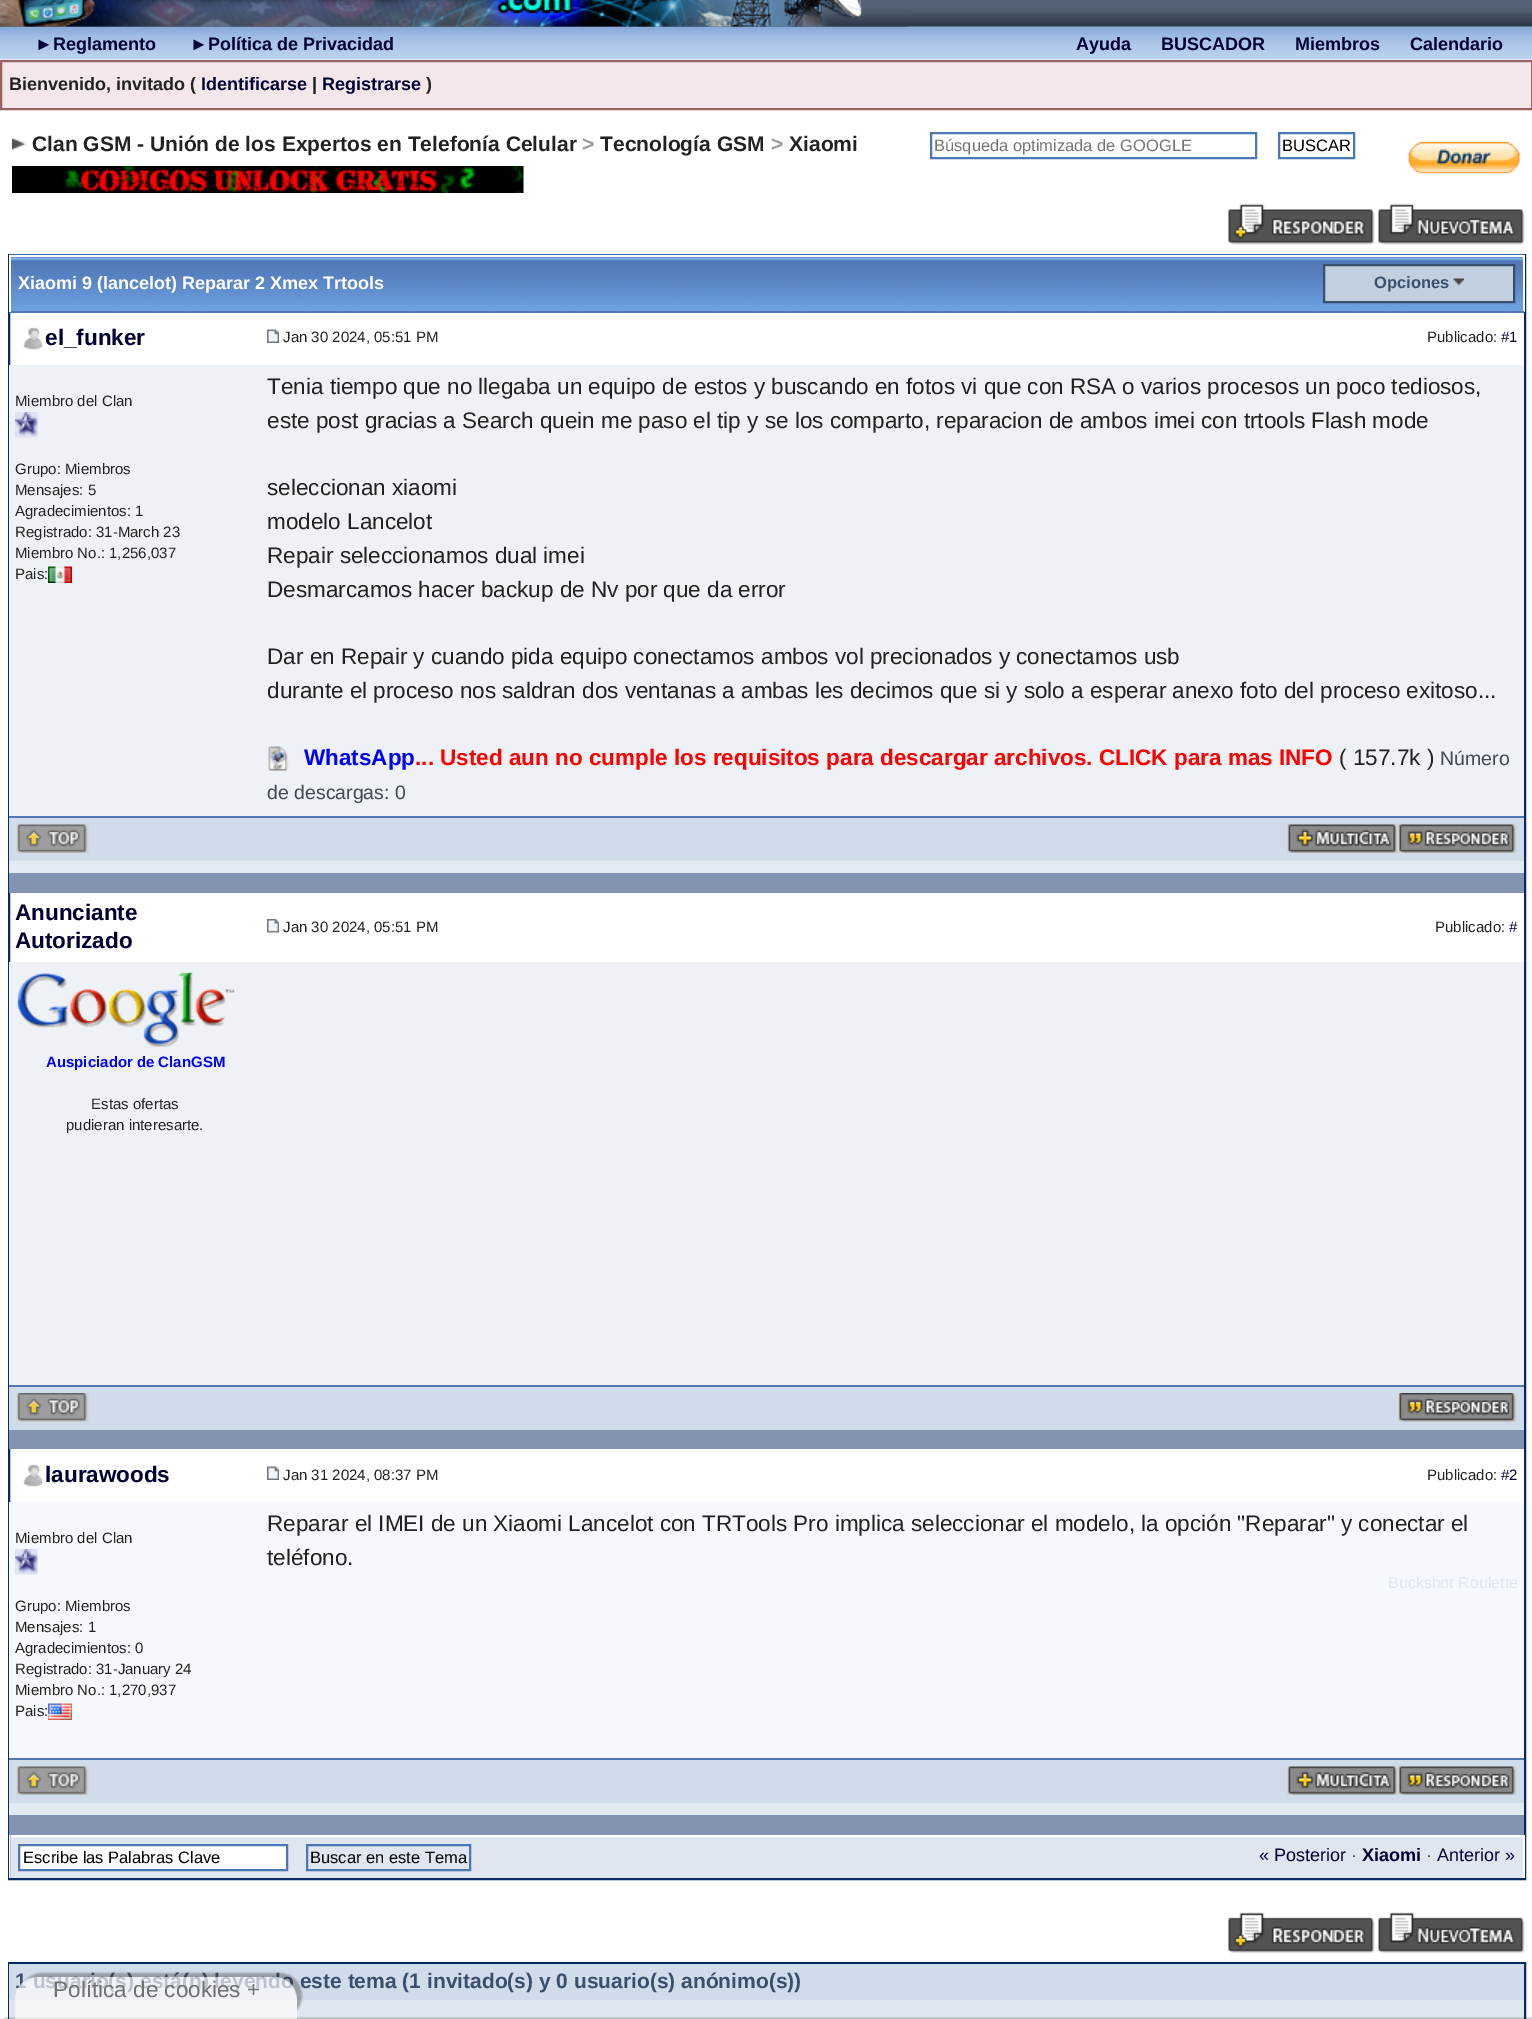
%!PS
<< /PageSize [1532 2019] /PageUsesTransparency true >> setpagedevice
/alpha { dup .setfillconstantalpha .setstrokeconstantalpha } def
/roundrect { 5 dict begin { /r /h /w /y /x } { exch def } forall
  x r add y moveto x w add y 2 copy h add r arct x w add y h add x 1 index r arct
  x y h add x y r arct x y 2 copy exch w add exch r arct closepath end } def
/shadow { 12 dict begin { /a /b /q /h /w /y /x } { exch def } forall gsave /was 0 def
  9 -2 -9 { dup b mul 4 div /e exch def 1 sub .425 mul 2.718 exch exp 1 add a .99 .min exch div /now exch def
    1 1 now sub 1 was sub div sub alpha /was now def
    w h .min e 2 mul add 0 gt { x e sub y e sub w e 2 mul add h e 2 mul add
      q e add b .6 mul add w h .min 2 div e add .min 0 .max roundrect fill } if } for grestore end } def
/picture { 5 dict begin { /h /w /y /x /name } { exch def } forall
  gsave x y translate w h scale
  w h 8 [w 0 0 h 0 0] name (r) file false 3 colorimage grestore end } def
0 .pushpdf14devicefilter
0 2019 translate 1 -1 scale
4 setmiterlimit
1 setgray
0 0 1532 2019 rectfill
0.188 0.231 0.29 setrgbcolor
0 23 1532 4 rectfill
(img1.rgb) 907 0 625 23 picture
(img3.rgb) 0 26 1532 34 picture
(img2.rgb) 0 0 908 27 picture
/LiberationSans-Bold [18 0 0 -18 0 0] selectfont
0 0 0.2 setrgbcolor
35 50 moveto (►Reglamento) show
190 50 moveto (►Política de Privacidad) show
1076 50 moveto (Ayuda) show
1161 50 moveto (BUSCADOR) show
1295 50 moveto (Miembros) show
1410 50 moveto (Calendario) show
0.957 0.906 0.918 setrgbcolor
newpath 1 61 moveto 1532 61 lineto 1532 109 lineto 1 109 lineto closepath gsave fill grestore
0.596 0.384 0.396 setrgbcolor
2 setlinewidth
stroke
0.133 setgray
9 90 moveto (Bienvenido, invitado \() show
0 0 0.2 setrgbcolor
201 90 moveto (Identificarse) show
0.133 setgray
312 90 moveto (|) show
0 0 0.2 setrgbcolor
322 90 moveto (Registrarse) show
0.133 setgray
426 90 moveto (\)) show
(img4.rgb) 12 137 14 13 picture
/LiberationSans-Bold [21 0 0 -21 0 0] selectfont
32 151 moveto (Clan GSM - Unión de los Expertos en Telefonía Celular) show
0.6 setgray
582 151 moveto (>) show
0.133 setgray
600 151 moveto (Tecnología GSM) show
0.6 setgray
771 151 moveto (>) show
0.133 setgray
789 151 moveto (Xiaomi) show
0.298 0.467 0.714 setrgbcolor
931 133 325 25 rectstroke
/LiberationSans-Regular [16.5 0 0 -16.5 0 0] selectfont
0.459 setgray
934 151 moveto (Búsqueda optimizada de GOOGLE) show
0.298 0.467 0.714 setrgbcolor
1279 133 75 25 rectstroke
0 setgray
1282 151 moveto (BUSCAR) show
(img5.rgb) 12 166 512 27 picture
(img6.rgb) 1408 142 112 32 picture
(img7.rgb) 1228 203 147 42 picture
(img8.rgb) 1378 203 147 42 picture
0.027 0.165 0.4 setrgbcolor
9 255 1516 1624 rectstroke
(img9.rgb) 9 254 1515 57 picture
1 setgray
9 255 1515 2 rectfill
1523 255 2 57 rectfill
0.318 0.463 0.71 setrgbcolor
9 311 1515 2 rectfill
1 setgray
9 255 2 57 rectfill
/LiberationSans-Bold [18 0 0 -18 0 0] selectfont
18 289 moveto (Xiaomi 9 \(lancelot\) Reparar 2 Xmex Trtools) show
0.761 0.812 0.875 setrgbcolor
newpath 1324 265 moveto 1514 265 lineto 1514 302 lineto 1324 302 lineto closepath gsave fill grestore
0.227 0.31 0.424 setrgbcolor
stroke
/LiberationSans-Bold [16.5 0 0 -16.5 0 0] selectfont
1374 288 moveto (Opciones) show
(img10.rgb) 1453 278 11 8 picture
(img11.rgb) 23 327 20 23 picture
/LiberationSans-Bold [22.5 0 0 -22.5 0 0] selectfont
0 0 0.2 setrgbcolor
45 345 moveto (el_funker) show
(img12.rgb) 267 329 12 14 picture
/LiberationSans-Regular [15 0 0 -15 0 0] selectfont
0.133 setgray
283 342 moveto (Jan 30 2024, 05:51 PM) show
1427 342 moveto (Publicado:) show
0 0 0.2 setrgbcolor
1501 342 moveto (#1) show
0.933 0.949 0.969 setrgbcolor
9 365 1515 451 rectfill
0.133 setgray
15 406 moveto (Miembro del Clan) show
(img13.rgb) 15 412 23 26 picture
15 474 moveto (Grupo: Miembros) show
15 495 moveto (Mensajes: 5) show
15 516 moveto (Agradecimientos: 1) show
15 537 moveto (Registrado: 31-March 23) show
15 558 moveto (Miembro No.: 1,256,037) show
15 579 moveto (Pais:) show
(img14.rgb) 48 566 24 17 picture
/LiberationSans-Regular [22.5 0 0 -22.5 0 0] selectfont
267 394 moveto (Tenia tiempo que no llegaba un equipo de estos y buscando en fotos vi que con RSA o varios procesos un poco tediosos,) show
267 428 moveto (este post gracias a Search quein me paso el tip y se los comparto, reparacion de ambos imei con trtools Flash mode) show
267 495 moveto (seleccionan xiaomi) show
267 529 moveto (modelo Lancelot) show
267 563 moveto (Repair seleccionamos dual imei) show
267 597 moveto (Desmarcamos hacer backup de Nv por que da error) show
267 664 moveto (Dar en Repair y cuando pida equipo conectamos ambos vol precionados y conectamos usb) show
267 698 moveto (durante el proceso nos saldran dos ventanas a ambas les decimos que si y solo a esperar anexo foto del proceso exitoso...) show
(img15.rgb) 268 746 21 25 picture
/LiberationSans-Bold [22.5 0 0 -22.5 0 0] selectfont
0 0 1 setrgbcolor
304 765 moveto (WhatsApp) show
1 0 0 setrgbcolor
415 765 moveto (... Usted aun no cumple los requisitos para descargar archivos. CLICK para mas INFO) show
/LiberationSans-Regular [22.5 0 0 -22.5 0 0] selectfont
0.133 setgray
1339 765 moveto (\( 157.7k \)) show
/LiberationSans-Regular [19.5 0 0 -19.5 0 0] selectfont
0.263 0.286 0.318 setrgbcolor
1440 765 moveto (Número) show
267 799 moveto (de descargas: 0) show
0.82 0.863 0.922 setrgbcolor
9 818 1515 43 rectfill
0.318 0.463 0.71 setrgbcolor
9 816 1515 2 rectfill
(img16.rgb) 16 824 73 29 picture
(img17.rgb) 1287 824 111 29 picture
(img18.rgb) 1398 824 119 29 picture
0.894 0.918 0.949 setrgbcolor
9 861 1515 12 rectfill
0.514 0.58 0.698 setrgbcolor
9 873 1515 20 rectfill
/LiberationSans-Bold [22.5 0 0 -22.5 0 0] selectfont
0 0 0.2 setrgbcolor
15 920 moveto (Anunciante) show
15 948 moveto (Autorizado) show
(img19.rgb) 267 919 12 14 picture
/LiberationSans-Regular [15 0 0 -15 0 0] selectfont
0.133 setgray
283 932 moveto (Jan 30 2024, 05:51 PM) show
1435 932 moveto (Publicado:) show
0 0 0.2 setrgbcolor
1509 932 moveto (#) show
0.933 0.949 0.969 setrgbcolor
9 962 1515 423 rectfill
(img20.rgb) 17 972 218 75 picture
/LiberationSans-Bold [15 0 0 -15 0 0] selectfont
0 0 1 setrgbcolor
46 1067 moveto (Auspiciador de ClanGSM) show
/LiberationSans-Regular [15 0 0 -15 0 0] selectfont
0.133 setgray
91 1109 moveto (Estas ofertas) show
66 1130 moveto (pudieran interesarte.) show
0.82 0.863 0.922 setrgbcolor
9 1387 1515 43 rectfill
0.318 0.463 0.71 setrgbcolor
9 1385 1515 2 rectfill
(img21.rgb) 16 1393 73 29 picture
(img22.rgb) 1398 1393 119 29 picture
0.514 0.58 0.698 setrgbcolor
9 1430 1515 19 rectfill
(img11.rgb) 23 1464 20 23 picture
/LiberationSans-Bold [22.5 0 0 -22.5 0 0] selectfont
0 0 0.2 setrgbcolor
45 1482 moveto (laurawoods) show
(img12.rgb) 267 1466 12 14 picture
/LiberationSans-Regular [15 0 0 -15 0 0] selectfont
0.133 setgray
283 1480 moveto (Jan 31 2024, 08:37 PM) show
1427 1480 moveto (Publicado:) show
0 0 0.2 setrgbcolor
1501 1480 moveto (#2) show
0.961 0.976 0.992 setrgbcolor
9 1502 1515 256 rectfill
0.133 setgray
15 1543 moveto (Miembro del Clan) show
(img23.rgb) 15 1549 23 26 picture
15 1611 moveto (Grupo: Miembros) show
15 1632 moveto (Mensajes: 1) show
15 1653 moveto (Agradecimientos: 0) show
15 1674 moveto (Registrado: 31-January 24) show
15 1695 moveto (Miembro No.: 1,270,937) show
15 1716 moveto (Pais:) show
(img24.rgb) 48 1703 24 17 picture
/LiberationSans-Regular [22.5 0 0 -22.5 0 0] selectfont
267 1531 moveto (Reparar el IMEI de un Xiaomi Lancelot con TRTools Pro implica seleccionar el modelo, la opción "Reparar" y conectar el) show
267 1565 moveto (teléfono.) show
/LiberationSans-Regular [16 0 0 -16 0 0] selectfont
0.875 0.902 0.937 setrgbcolor
1388 1588 moveto (Buckshot Roulette) show
0.82 0.863 0.922 setrgbcolor
9 1760 1515 43 rectfill
0.318 0.463 0.71 setrgbcolor
9 1758 1515 2 rectfill
(img16.rgb) 16 1766 73 29 picture
(img17.rgb) 1287 1766 111 29 picture
(img18.rgb) 1398 1766 119 29 picture
0.894 0.918 0.949 setrgbcolor
9 1803 1515 12 rectfill
0.514 0.58 0.698 setrgbcolor
9 1815 1515 20 rectfill
0.875 0.902 0.937 setrgbcolor
11 1837 1512 41 rectfill
1 setgray
9 1835 1 43 rectfill
1524 1835 1 43 rectfill
newpath 19 1845 moveto 287 1845 lineto 287 1870 lineto 19 1870 lineto closepath gsave fill grestore
0.298 0.467 0.714 setrgbcolor
stroke
/LiberationSans-Regular [16.5 0 0 -16.5 0 0] selectfont
0 setgray
23 1863 moveto (Escribe las Palabras Clave) show
0.298 0.467 0.714 setrgbcolor
307 1845 163 25 rectstroke
0 setgray
310 1863 moveto (Buscar en este Tema) show
/LiberationSans-Regular [18 0 0 -18 0 0] selectfont
0 0 0.2 setrgbcolor
1259 1861 moveto (« Posterior) show
0.133 setgray
1351 1861 moveto (·) show
/LiberationSans-Bold [18 0 0 -18 0 0] selectfont
0 0 0.2 setrgbcolor
1362 1861 moveto (Xiaomi) show
/LiberationSans-Regular [18 0 0 -18 0 0] selectfont
0.133 setgray
1426 1861 moveto (·) show
0 0 0.2 setrgbcolor
1437 1861 moveto (Anterior ») show
(img25.rgb) 1228 1912 147 41 picture
(img26.rgb) 1378 1912 147 41 picture
0.027 0.165 0.4 setrgbcolor
9 1963 1516 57 rectstroke
0.82 0.863 0.922 setrgbcolor
9 1964 1515 36 rectfill
/LiberationSans-Bold [21 0 0 -21 0 0] selectfont
0.227 0.31 0.424 setrgbcolor
15 1988 moveto (1 usuario\(s\) está\(n\) leyendo este tema \(1 invitado\(s\) y 0 usuario\(s\) anónimo\(s\)\)) show
0.875 0.902 0.937 setrgbcolor
9 2000 1515 19 rectfill
0.196 setgray
5 2018 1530 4 0 1 0.39 shadow
gsave
newpath 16 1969 moveto 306 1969 lineto 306 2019 lineto 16 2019 lineto closepath 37.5 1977 moveto 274.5 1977 lineto 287 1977 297 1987 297 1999.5 curveto 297 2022 lineto 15 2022 lineto 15 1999.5 lineto 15 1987 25 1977 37.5 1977 curveto closepath eoclip newpath
20 1973 282 45 22.5 1 0.37 shadow
grestore
0.66 alpha
1 setgray
newpath 37.5 1977 moveto 274.5 1977 lineto 287 1977 297 1987 297 1999.5 curveto 297 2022 lineto 15 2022 lineto 15 1999.5 lineto 15 1987 25 1977 37.5 1977 curveto closepath fill
/LiberationSans-Regular [22.5 0 0 -22.5 0 0] selectfont
1 alpha
0.435 0.443 0.451 setrgbcolor
53 1997 moveto (Política de cookies +) show
.poppdf14devicefilter showpage
